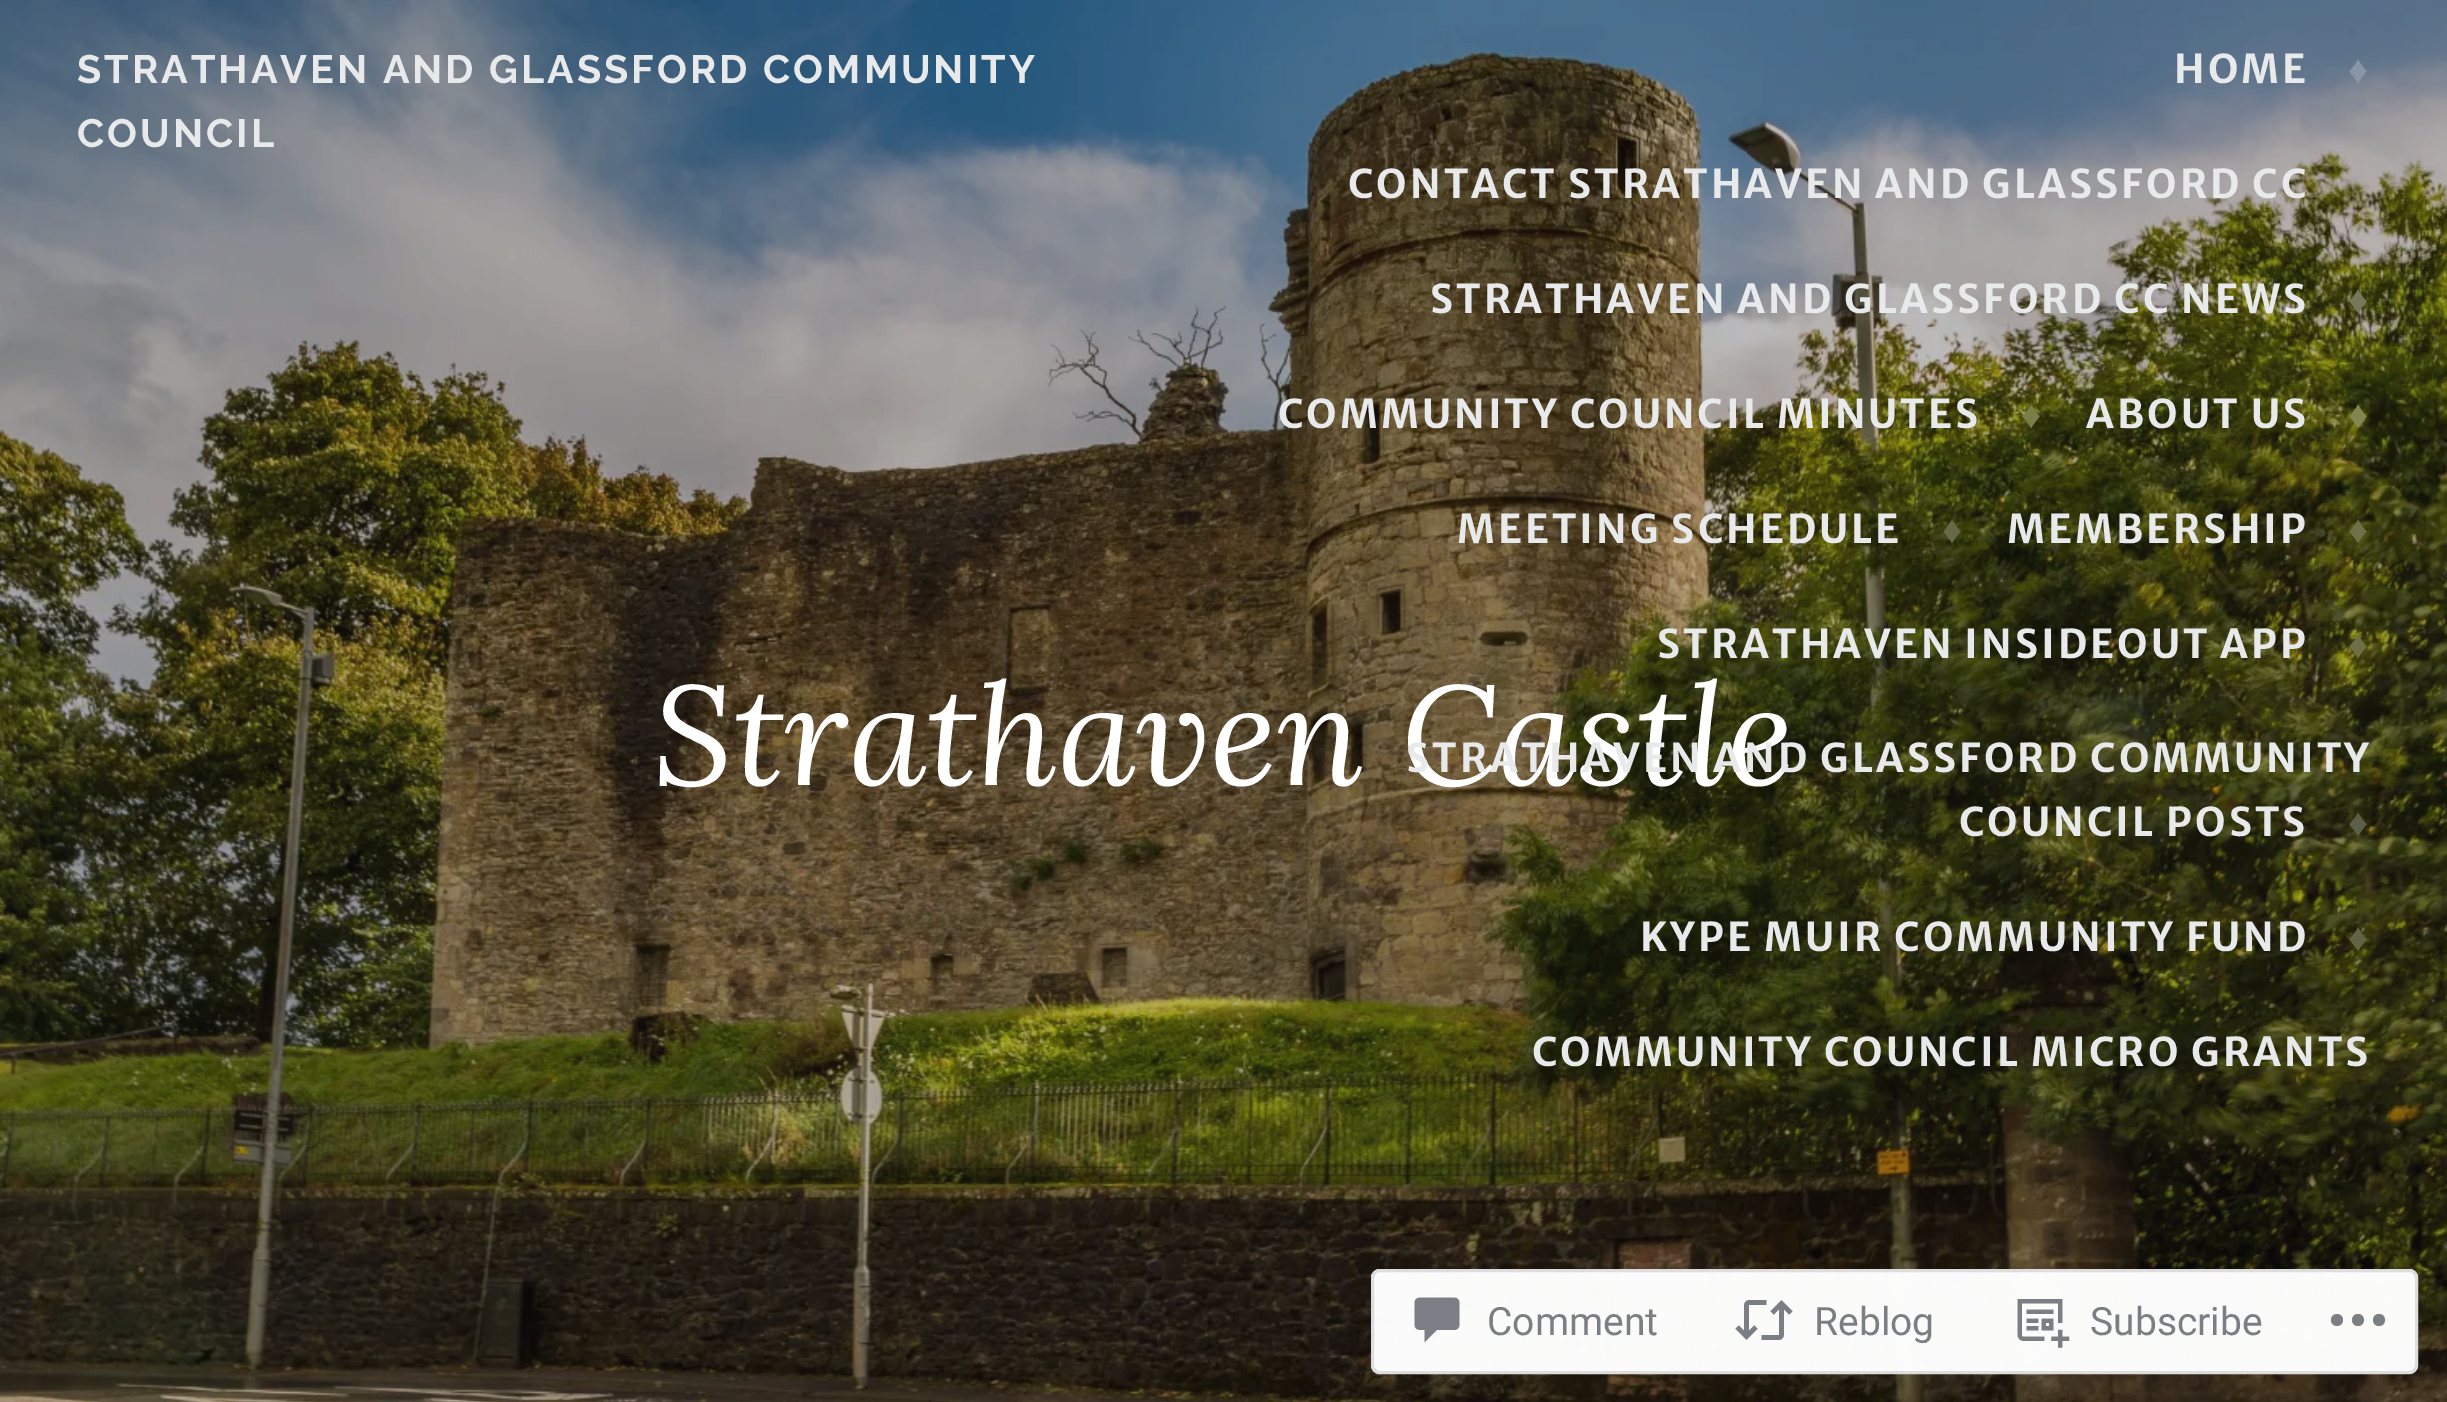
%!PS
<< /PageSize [2447 1402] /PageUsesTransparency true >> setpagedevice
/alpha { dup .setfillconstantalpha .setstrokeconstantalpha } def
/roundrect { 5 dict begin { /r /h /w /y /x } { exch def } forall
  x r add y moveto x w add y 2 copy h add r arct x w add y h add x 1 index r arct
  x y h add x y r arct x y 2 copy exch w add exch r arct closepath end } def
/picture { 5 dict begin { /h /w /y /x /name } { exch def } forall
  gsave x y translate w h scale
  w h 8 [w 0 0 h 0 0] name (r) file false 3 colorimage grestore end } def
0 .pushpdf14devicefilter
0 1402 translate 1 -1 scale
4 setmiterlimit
1 setgray
0 0 2447 1402 rectfill
(img1.rgb) 0 0 2447 1402 picture
/Raleway-Bold [39.6 0 0 -39.6 0 0] selectfont
0.91 0.914 0.918 setrgbcolor
77 83 moveto 3 0 (STRATHAVEN AND GLASSFORD COMMUNITY) ashow
77 147 moveto 3 0 (COUNCIL) ashow
/MerriweatherSans-Bold [39.6 0 0 -39.6 0 0] selectfont
2174 83 moveto 3 0 (HOME) ashow
/LiberationSans-Bold [39.6 0 0 -39.6 0 0] selectfont
0.537 0.588 0.647 setrgbcolor
2348 83 moveto 3 0 (♦) ashow
/MerriweatherSans-Bold [39.6 0 0 -39.6 0 0] selectfont
0.91 0.914 0.918 setrgbcolor
1348 198 moveto 3 0 (CONTACT STRATHAVEN AND GLASSFORD CC) ashow
1430 313 moveto 3 0 (STRATHAVEN AND GLASSFORD CC NEWS) ashow
/LiberationSans-Bold [39.6 0 0 -39.6 0 0] selectfont
0.467 0.471 0.349 setrgbcolor
2348 313 moveto 3 0 (♦) ashow
/MerriweatherSans-Bold [39.6 0 0 -39.6 0 0] selectfont
0.91 0.914 0.918 setrgbcolor
1278 428 moveto 3 0 (COMMUNITY COUNCIL MINUTES) ashow
/LiberationSans-Bold [39.6 0 0 -39.6 0 0] selectfont
0.482 0.49 0.286 setrgbcolor
2021 428 moveto 3 0 (♦) ashow
/MerriweatherSans-Bold [39.6 0 0 -39.6 0 0] selectfont
0.91 0.914 0.918 setrgbcolor
2086 428 moveto 3 0 (ABOUT US) ashow
/LiberationSans-Bold [39.6 0 0 -39.6 0 0] selectfont
0.522 0.522 0.318 setrgbcolor
2348 428 moveto 3 0 (♦) ashow
/MerriweatherSans-Bold [39.6 0 0 -39.6 0 0] selectfont
0.91 0.914 0.918 setrgbcolor
1457 543 moveto 3 0 (MEETING SCHEDULE) ashow
/LiberationSans-Bold [39.6 0 0 -39.6 0 0] selectfont
0.4 0.42 0.278 setrgbcolor
1942 543 moveto 3 0 (♦) ashow
/MerriweatherSans-Bold [39.6 0 0 -39.6 0 0] selectfont
0.91 0.914 0.918 setrgbcolor
2007 543 moveto 3 0 (MEMBERSHIP) ashow
/LiberationSans-Bold [39.6 0 0 -39.6 0 0] selectfont
0.431 0.443 0.278 setrgbcolor
2348 543 moveto 3 0 (♦) ashow
/MerriweatherSans-Bold [39.6 0 0 -39.6 0 0] selectfont
0.91 0.914 0.918 setrgbcolor
1657 658 moveto 3 0 (STRATHAVEN INSIDEOUT APP) ashow
/LiberationSans-Bold [39.6 0 0 -39.6 0 0] selectfont
0.431 0.443 0.278 setrgbcolor
2348 658 moveto 3 0 (♦) ashow
/Lora-Italic [141.25 0 0 -141.25 0 0] selectfont
1 setgray
653 785 moveto (Strathaven Castle) show
/MerriweatherSans-Bold [39.6 0 0 -39.6 0 0] selectfont
0.91 0.914 0.918 setrgbcolor
1406 772 moveto 3 0 (STRATHAVEN AND GLASSFORD COMMUNITY) ashow
1959 836 moveto 3 0 (COUNCIL POSTS) ashow
/LiberationSans-Bold [39.6 0 0 -39.6 0 0] selectfont
0.365 0.369 0.278 setrgbcolor
2348 836 moveto 3 0 (♦) ashow
/MerriweatherSans-Bold [39.6 0 0 -39.6 0 0] selectfont
0.91 0.914 0.918 setrgbcolor
1640 951 moveto 3 0 (KYPE MUIR COMMUNITY FUND) ashow
/LiberationSans-Bold [39.6 0 0 -39.6 0 0] selectfont
0.388 0.388 0.271 setrgbcolor
2348 951 moveto 3 0 (♦) ashow
/MerriweatherSans-Bold [39.6 0 0 -39.6 0 0] selectfont
0.91 0.914 0.918 setrgbcolor
1532 1066 moveto 3 0 (COMMUNITY COUNCIL MICRO GRANTS) ashow
0.98 alpha
1 setgray
1371 1269 1047 105 9 roundrect fill
0.863 0.863 0.871 setrgbcolor
3 setlinewidth
1372.5 1270.5 1044 102 7.5 roundrect stroke
1 alpha
(img2.rgb) 1414 1297 46 46 picture
/Roboto-Regular [39 0 0 -39 0 0] selectfont
0.482 0.498 0.518 setrgbcolor
1487 1335 moveto (Comment) show
(img3.rgb) 1735 1300 58 40 picture
1814 1335 moveto (Reblog) show
(img4.rgb) 2017 1299 53 49 picture
2090 1335 moveto (Subscribe) show
newpath 2343 1320 moveto 2343 1328 2331 1328 2331 1320 curveto 2331 1312 2343 1312 2343 1320 curveto closepath 2379 1314 moveto 2371 1314 2371 1326 2379 1326 curveto 2387 1326 2387 1314 2379 1314 curveto closepath 2358 1314 moveto 2350 1314 2350 1326 2358 1326 curveto 2366 1326 2366 1314 2358 1314 curveto closepath fill
.poppdf14devicefilter showpage
